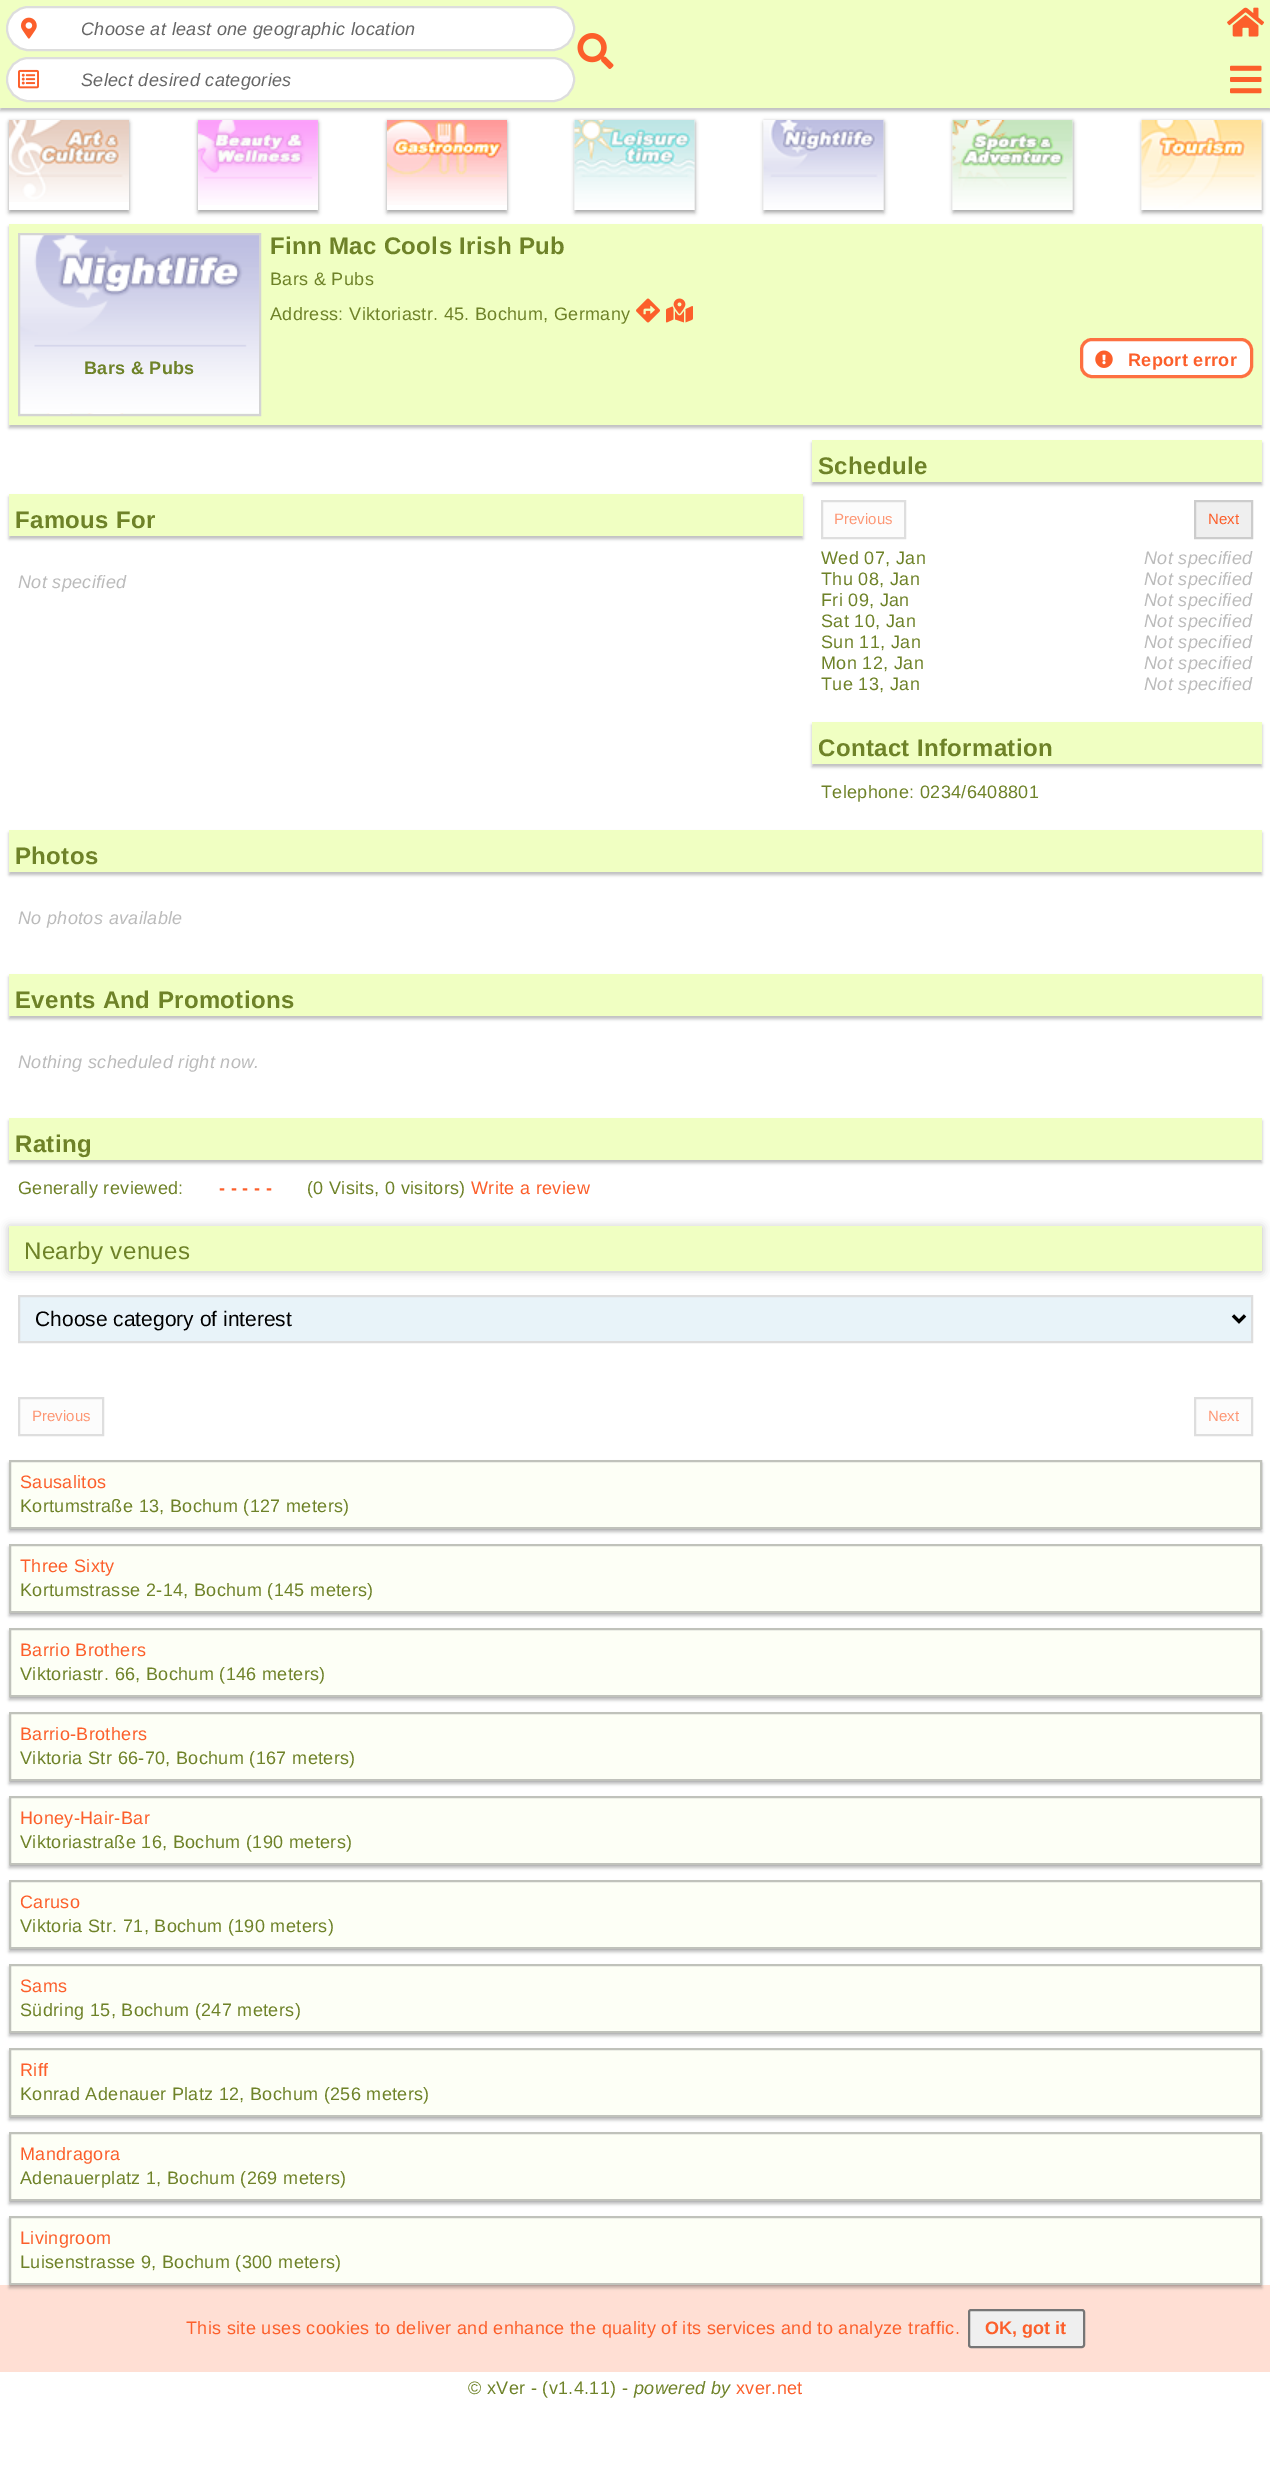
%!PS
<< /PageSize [1270 2492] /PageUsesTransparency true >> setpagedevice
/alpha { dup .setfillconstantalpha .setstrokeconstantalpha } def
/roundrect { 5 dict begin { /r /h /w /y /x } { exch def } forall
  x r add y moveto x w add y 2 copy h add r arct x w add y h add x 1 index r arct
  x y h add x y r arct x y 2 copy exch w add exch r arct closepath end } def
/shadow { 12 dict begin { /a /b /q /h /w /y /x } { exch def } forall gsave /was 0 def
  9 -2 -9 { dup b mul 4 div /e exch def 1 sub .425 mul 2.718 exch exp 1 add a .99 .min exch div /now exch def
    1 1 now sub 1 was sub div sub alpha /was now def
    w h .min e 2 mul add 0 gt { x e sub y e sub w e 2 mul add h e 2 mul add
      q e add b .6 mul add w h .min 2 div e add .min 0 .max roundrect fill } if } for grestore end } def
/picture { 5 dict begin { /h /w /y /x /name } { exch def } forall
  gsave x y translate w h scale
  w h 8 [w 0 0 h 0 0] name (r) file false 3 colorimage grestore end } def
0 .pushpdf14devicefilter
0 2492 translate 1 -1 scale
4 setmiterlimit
1 setgray
0 0 1270 2492 rectfill
0.125 0.129 0.141 setrgbcolor
0 3 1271 108 0 1.5 0.28 shadow
0.941 1 0.761 setrgbcolor
0 0 1270 108 rectfill
1 setgray
7 7 567 43 21.5 roundrect gsave fill grestore
0.867 setgray
2 setlinewidth
stroke
(img1.rgb) 21 17 16 22 picture
/LiberationSans-Italic [18 0 0 -18 0 0] selectfont
0.4 setgray
81 35 moveto 0.35 0 (Choose at least one geographic location) ashow
1 setgray
7 58 567 43 21.5 roundrect gsave fill grestore
0.867 setgray
stroke
(img2.rgb) 18 69 21 20 picture
0.4 setgray
81 86 moveto 0.35 0 (Select desired categories) ashow
(img3.rgb) 577 33 37 36 picture
(img4.rgb) 1227 7 37 30 picture
(img5.rgb) 1230 65 32 29 picture
gsave
newpath 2 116 moveto 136 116 lineto 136 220 lineto 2 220 lineto closepath 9 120 moveto 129 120 lineto 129 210 lineto 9 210 lineto closepath eoclip newpath
0 setgray
9 123 120 90 0 2 0.28 shadow
grestore
gsave
newpath 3 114 moveto 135 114 lineto 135 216 lineto 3 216 lineto closepath 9 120 moveto 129 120 lineto 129 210 lineto 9 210 lineto closepath eoclip newpath
0 setgray
9 120 120 90 0 1.5 0.14 shadow
grestore
(img6.rgb) 9 120 120 82 picture
gsave
newpath 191 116 moveto 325 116 lineto 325 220 lineto 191 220 lineto closepath 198 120 moveto 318 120 lineto 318 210 lineto 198 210 lineto closepath eoclip newpath
0 setgray
198 123 120 90 0 2 0.28 shadow
grestore
gsave
newpath 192 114 moveto 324 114 lineto 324 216 lineto 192 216 lineto closepath 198 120 moveto 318 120 lineto 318 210 lineto 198 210 lineto closepath eoclip newpath
0 setgray
198 120 120 90 0 1.5 0.14 shadow
grestore
(img7.rgb) 198 120 120 85 picture
gsave
newpath 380 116 moveto 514 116 lineto 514 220 lineto 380 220 lineto closepath 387 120 moveto 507 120 lineto 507 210 lineto 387 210 lineto closepath eoclip newpath
0 setgray
387 123 120 90 0 2 0.28 shadow
grestore
gsave
newpath 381 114 moveto 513 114 lineto 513 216 lineto 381 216 lineto closepath 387 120 moveto 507 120 lineto 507 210 lineto 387 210 lineto closepath eoclip newpath
0 setgray
387 120 120 90 0 1.5 0.14 shadow
grestore
(img8.rgb) 387 120 120 85 picture
0 setgray
575 123 120 90 0 2 0.28 shadow
575 120 120 90 0 1.5 0.14 shadow
(img9.rgb) 574 120 121 90 picture
764 123 120 90 0 2 0.28 shadow
764 120 120 90 0 1.5 0.14 shadow
(img10.rgb) 763 120 121 90 picture
953 123 120 90 0 2 0.28 shadow
953 120 120 90 0 1.5 0.14 shadow
(img11.rgb) 952 120 121 90 picture
1142 123 120 90 0 2 0.28 shadow
1142 120 120 90 0 1.5 0.14 shadow
(img12.rgb) 1141 120 121 90 picture
0.125 0.129 0.141 setrgbcolor
9 227 1253 201 0 1.5 0.28 shadow
0.941 1 0.761 setrgbcolor
9 224 1253 201 rectfill
(img13.rgb) 20 235 239 179 picture
0.831 setgray
19 234 241 181 rectstroke
/LiberationSans-Bold [18 0 0 -18 0 0] selectfont
0.431 0.51 0.157 setrgbcolor
84 374 moveto 0.35 0 (Bars & Pubs) ashow
/LiberationSans-Bold [24 0 0 -24 0 0] selectfont
270 254 moveto 0.35 0 (Finn Mac Cools Irish Pub) ashow
/LiberationSans-Regular [18 0 0 -18 0 0] selectfont
270 285 moveto 0.35 0 (Bars & Pubs) ashow
270 320 moveto 0.35 0 (Address: Viktoriastr. 45. Bochum, Germany) ashow
(img14.rgb) 636 298 24 25 picture
(img15.rgb) 666 298 27 25 picture
1 setgray
1081.5 339.5 170 37 10.5 roundrect gsave fill grestore
0.992 0.439 0.255 setrgbcolor
3 setlinewidth
stroke
(img16.rgb) 1095 350 18 18 picture
/LiberationSans-Bold [18 0 0 -18 0 0] selectfont
0.988 0.373 0.169 setrgbcolor
1128 366 moveto 0.35 0 (Report error) ashow
0.125 0.129 0.141 setrgbcolor
9 497 794 42 0 1.5 0.28 shadow
0.941 1 0.761 setrgbcolor
9 494 794 42 rectfill
/LiberationSans-Bold [24 0 0 -24 0 0] selectfont
0.431 0.51 0.157 setrgbcolor
15 528 moveto 0.35 0 (Famous For) ashow
/LiberationSans-Italic [18 0 0 -18 0 0] selectfont
0.733 setgray
18 588 moveto 0.35 0 (Not specified) ashow
0.125 0.129 0.141 setrgbcolor
812 443 450 42 0 1.5 0.28 shadow
0.941 1 0.761 setrgbcolor
812 440 450 42 rectfill
/LiberationSans-Bold [24 0 0 -24 0 0] selectfont
0.431 0.51 0.157 setrgbcolor
818 474 moveto 0.35 0 (Schedule) ashow
0.988 setgray
newpath 822 501 moveto 905 501 lineto 905 538 lineto 822 538 lineto closepath gsave fill grestore
0.871 setgray
2 setlinewidth
stroke
/LiberationSans-Regular [15 0 0 -15 0 0] selectfont
0.992 0.592 0.459 setrgbcolor
834 524 moveto (Previous) show
0.937 setgray
newpath 1195 501 moveto 1252 501 lineto 1252 538 lineto 1195 538 lineto closepath gsave fill grestore
0.8 setgray
stroke
0.988 0.373 0.169 setrgbcolor
1208 524 moveto (Next) show
/LiberationSans-Regular [18 0 0 -18 0 0] selectfont
0.431 0.51 0.157 setrgbcolor
821 564 moveto 0.35 0 (Wed 07, Jan) ashow
821 585 moveto 0.35 0 (Thu 08, Jan) ashow
821 606 moveto 0.35 0 (Fri 09, Jan) ashow
821 627 moveto 0.35 0 (Sat 10, Jan) ashow
821 648 moveto 0.35 0 (Sun 11, Jan) ashow
821 669 moveto 0.35 0 (Mon 12, Jan) ashow
821 690 moveto 0.35 0 (Tue 13, Jan) ashow
/LiberationSans-Italic [18 0 0 -18 0 0] selectfont
0.733 setgray
1144 564 moveto 0.35 0 (Not specified) ashow
1144 585 moveto 0.35 0 (Not specified) ashow
1144 606 moveto 0.35 0 (Not specified) ashow
1144 627 moveto 0.35 0 (Not specified) ashow
1144 648 moveto 0.35 0 (Not specified) ashow
1144 669 moveto 0.35 0 (Not specified) ashow
1144 690 moveto 0.35 0 (Not specified) ashow
0.125 0.129 0.141 setrgbcolor
812 725 450 42 0 1.5 0.28 shadow
0.941 1 0.761 setrgbcolor
812 722 450 42 rectfill
/LiberationSans-Bold [24 0 0 -24 0 0] selectfont
0.431 0.51 0.157 setrgbcolor
818 756 moveto 0.35 0 (Contact Information) ashow
/LiberationSans-Regular [18 0 0 -18 0 0] selectfont
821 798 moveto 0.35 0 (Telephone: 0234/6408801) ashow
0.125 0.129 0.141 setrgbcolor
9 833 1253 42 0 1.5 0.28 shadow
0.941 1 0.761 setrgbcolor
9 830 1253 42 rectfill
/LiberationSans-Bold [24 0 0 -24 0 0] selectfont
0.431 0.51 0.157 setrgbcolor
15 864 moveto 0.35 0 (Photos) ashow
/LiberationSans-Italic [18 0 0 -18 0 0] selectfont
0.733 setgray
18 924 moveto 0.35 0 (No photos available) ashow
0.125 0.129 0.141 setrgbcolor
9 977 1253 42 0 1.5 0.28 shadow
0.941 1 0.761 setrgbcolor
9 974 1253 42 rectfill
/LiberationSans-Bold [24 0 0 -24 0 0] selectfont
0.431 0.51 0.157 setrgbcolor
15 1008 moveto 0.35 0 (Events And Promotions) ashow
/LiberationSans-Italic [18 0 0 -18 0 0] selectfont
0.733 setgray
18 1068 moveto 0.35 0 (Nothing scheduled right now.) ashow
0.125 0.129 0.141 setrgbcolor
9 1121 1253 42 0 1.5 0.28 shadow
0.941 1 0.761 setrgbcolor
9 1118 1253 42 rectfill
/LiberationSans-Bold [24 0 0 -24 0 0] selectfont
0.431 0.51 0.157 setrgbcolor
15 1152 moveto 0.35 0 (Rating) ashow
/LiberationSans-Regular [18 0 0 -18 0 0] selectfont
18 1194 moveto 0.35 0 (Generally reviewed:) ashow
/LiberationSans-Bold [18 0 0 -18 0 0] selectfont
0.988 0.373 0.169 setrgbcolor
219 1194 moveto 0.35 0 (- - - - -) ashow
/LiberationSans-Regular [18 0 0 -18 0 0] selectfont
0.431 0.51 0.157 setrgbcolor
307 1194 moveto 0.35 0 (\(0 Visits, 0 visitors\)) ashow
0.988 0.373 0.169 setrgbcolor
471 1194 moveto 0.35 0 (Write a review) ashow
0.125 0.129 0.141 setrgbcolor
9 1227 1253 45 0 4.5 0.28 shadow
0.941 1 0.761 setrgbcolor
9 1226 1253 45 rectfill
/LiberationSans-Regular [24 0 0 -24 0 0] selectfont
0.431 0.51 0.157 setrgbcolor
24 1259 moveto 0.35 0 (Nearby venues) ashow
0.91 0.953 0.976 setrgbcolor
newpath 19 1296 moveto 1252 1296 lineto 1252 1342 lineto 19 1342 lineto closepath gsave fill grestore
0.867 setgray
stroke
0 setgray
3 setlinewidth
newpath 1233 1315.5 moveto 1239 1321.5 lineto 1245 1315.5 lineto stroke
/LiberationSans-Regular [21 0 0 -21 0 0] selectfont
35 1326 moveto (Choose category of interest) show
0.988 setgray
newpath 19 1398 moveto 103 1398 lineto 103 1435 lineto 19 1435 lineto closepath gsave fill grestore
0.871 setgray
2 setlinewidth
stroke
/LiberationSans-Regular [15 0 0 -15 0 0] selectfont
0.992 0.592 0.459 setrgbcolor
32 1421 moveto (Previous) show
0.988 setgray
newpath 1195 1398 moveto 1252 1398 lineto 1252 1435 lineto 1195 1435 lineto closepath gsave fill grestore
0.871 setgray
stroke
0.992 0.592 0.459 setrgbcolor
1208 1421 moveto (Next) show
gsave
newpath 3 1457 moveto 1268 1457 lineto 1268 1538 lineto 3 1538 lineto closepath 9 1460 moveto 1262 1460 lineto 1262 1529 lineto 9 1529 lineto closepath eoclip newpath
0.125 0.129 0.141 setrgbcolor
9 1463 1253 69 0 1.5 0.28 shadow
grestore
0.1 alpha
0.922 1 0.635 setrgbcolor
9 1460 1253 69 rectfill
0.24 alpha
0 setgray
10 1461 1251 67 rectstroke
/LiberationSans-Regular [18 0 0 -18 0 0] selectfont
1 alpha
0.988 0.373 0.169 setrgbcolor
20 1488 moveto 0.35 0 (Sausalitos) ashow
0.431 0.51 0.157 setrgbcolor
20 1512 moveto 0.35 0 (Kortumstraße 13, Bochum \(127 meters\)) ashow
gsave
newpath 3 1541 moveto 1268 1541 lineto 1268 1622 lineto 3 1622 lineto closepath 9 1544 moveto 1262 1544 lineto 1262 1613 lineto 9 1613 lineto closepath eoclip newpath
0.125 0.129 0.141 setrgbcolor
9 1547 1253 69 0 1.5 0.28 shadow
grestore
0.1 alpha
0.922 1 0.635 setrgbcolor
9 1544 1253 69 rectfill
0.24 alpha
0 setgray
10 1545 1251 67 rectstroke
1 alpha
0.988 0.373 0.169 setrgbcolor
20 1572 moveto 0.35 0 (Three Sixty) ashow
0.431 0.51 0.157 setrgbcolor
20 1596 moveto 0.35 0 (Kortumstrasse 2-14, Bochum \(145 meters\)) ashow
gsave
newpath 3 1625 moveto 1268 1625 lineto 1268 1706 lineto 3 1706 lineto closepath 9 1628 moveto 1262 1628 lineto 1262 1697 lineto 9 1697 lineto closepath eoclip newpath
0.125 0.129 0.141 setrgbcolor
9 1631 1253 69 0 1.5 0.28 shadow
grestore
0.1 alpha
0.922 1 0.635 setrgbcolor
9 1628 1253 69 rectfill
0.24 alpha
0 setgray
10 1629 1251 67 rectstroke
1 alpha
0.988 0.373 0.169 setrgbcolor
20 1656 moveto 0.35 0 (Barrio Brothers) ashow
0.431 0.51 0.157 setrgbcolor
20 1680 moveto 0.35 0 (Viktoriastr. 66, Bochum \(146 meters\)) ashow
gsave
newpath 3 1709 moveto 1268 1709 lineto 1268 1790 lineto 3 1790 lineto closepath 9 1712 moveto 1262 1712 lineto 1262 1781 lineto 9 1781 lineto closepath eoclip newpath
0.125 0.129 0.141 setrgbcolor
9 1715 1253 69 0 1.5 0.28 shadow
grestore
0.1 alpha
0.922 1 0.635 setrgbcolor
9 1712 1253 69 rectfill
0.24 alpha
0 setgray
10 1713 1251 67 rectstroke
1 alpha
0.988 0.373 0.169 setrgbcolor
20 1740 moveto 0.35 0 (Barrio-Brothers) ashow
0.431 0.51 0.157 setrgbcolor
20 1764 moveto 0.35 0 (Viktoria Str 66-70, Bochum \(167 meters\)) ashow
gsave
newpath 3 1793 moveto 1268 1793 lineto 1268 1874 lineto 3 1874 lineto closepath 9 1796 moveto 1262 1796 lineto 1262 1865 lineto 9 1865 lineto closepath eoclip newpath
0.125 0.129 0.141 setrgbcolor
9 1799 1253 69 0 1.5 0.28 shadow
grestore
0.1 alpha
0.922 1 0.635 setrgbcolor
9 1796 1253 69 rectfill
0.24 alpha
0 setgray
10 1797 1251 67 rectstroke
1 alpha
0.988 0.373 0.169 setrgbcolor
20 1824 moveto 0.35 0 (Honey-Hair-Bar) ashow
0.431 0.51 0.157 setrgbcolor
20 1848 moveto 0.35 0 (Viktoriastraße 16, Bochum \(190 meters\)) ashow
gsave
newpath 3 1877 moveto 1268 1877 lineto 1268 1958 lineto 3 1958 lineto closepath 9 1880 moveto 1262 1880 lineto 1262 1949 lineto 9 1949 lineto closepath eoclip newpath
0.125 0.129 0.141 setrgbcolor
9 1883 1253 69 0 1.5 0.28 shadow
grestore
0.1 alpha
0.922 1 0.635 setrgbcolor
9 1880 1253 69 rectfill
0.24 alpha
0 setgray
10 1881 1251 67 rectstroke
1 alpha
0.988 0.373 0.169 setrgbcolor
20 1908 moveto 0.35 0 (Caruso) ashow
0.431 0.51 0.157 setrgbcolor
20 1932 moveto 0.35 0 (Viktoria Str. 71, Bochum \(190 meters\)) ashow
gsave
newpath 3 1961 moveto 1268 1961 lineto 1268 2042 lineto 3 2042 lineto closepath 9 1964 moveto 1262 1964 lineto 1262 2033 lineto 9 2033 lineto closepath eoclip newpath
0.125 0.129 0.141 setrgbcolor
9 1967 1253 69 0 1.5 0.28 shadow
grestore
0.1 alpha
0.922 1 0.635 setrgbcolor
9 1964 1253 69 rectfill
0.24 alpha
0 setgray
10 1965 1251 67 rectstroke
1 alpha
0.988 0.373 0.169 setrgbcolor
20 1992 moveto 0.35 0 (Sams) ashow
0.431 0.51 0.157 setrgbcolor
20 2016 moveto 0.35 0 (Südring 15, Bochum \(247 meters\)) ashow
gsave
newpath 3 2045 moveto 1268 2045 lineto 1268 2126 lineto 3 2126 lineto closepath 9 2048 moveto 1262 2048 lineto 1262 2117 lineto 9 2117 lineto closepath eoclip newpath
0.125 0.129 0.141 setrgbcolor
9 2051 1253 69 0 1.5 0.28 shadow
grestore
0.1 alpha
0.922 1 0.635 setrgbcolor
9 2048 1253 69 rectfill
0.24 alpha
0 setgray
10 2049 1251 67 rectstroke
1 alpha
0.988 0.373 0.169 setrgbcolor
20 2076 moveto 0.35 0 (Riff) ashow
0.431 0.51 0.157 setrgbcolor
20 2100 moveto 0.35 0 (Konrad Adenauer Platz 12, Bochum \(256 meters\)) ashow
gsave
newpath 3 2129 moveto 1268 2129 lineto 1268 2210 lineto 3 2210 lineto closepath 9 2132 moveto 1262 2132 lineto 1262 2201 lineto 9 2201 lineto closepath eoclip newpath
0.125 0.129 0.141 setrgbcolor
9 2135 1253 69 0 1.5 0.28 shadow
grestore
0.1 alpha
0.922 1 0.635 setrgbcolor
9 2132 1253 69 rectfill
0.24 alpha
0 setgray
10 2133 1251 67 rectstroke
1 alpha
0.988 0.373 0.169 setrgbcolor
20 2160 moveto 0.35 0 (Mandragora) ashow
0.431 0.51 0.157 setrgbcolor
20 2184 moveto 0.35 0 (Adenauerplatz 1, Bochum \(269 meters\)) ashow
1 0.875 0.831 setrgbcolor
0 2285 1270 87 rectfill
gsave
newpath 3 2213 moveto 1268 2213 lineto 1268 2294 lineto 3 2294 lineto closepath 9 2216 moveto 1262 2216 lineto 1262 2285 lineto 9 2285 lineto closepath eoclip newpath
0.125 0.129 0.141 setrgbcolor
9 2219 1253 69 0 1.5 0.28 shadow
grestore
0.1 alpha
0.922 1 0.635 setrgbcolor
9 2216 1253 69 rectfill
0.24 alpha
0 setgray
10 2217 1251 67 rectstroke
1 alpha
0.988 0.373 0.169 setrgbcolor
20 2244 moveto 0.35 0 (Livingroom) ashow
0.431 0.51 0.157 setrgbcolor
20 2268 moveto 0.35 0 (Luisenstrasse 9, Bochum \(300 meters\)) ashow
0.988 0.373 0.169 setrgbcolor
186 2334 moveto 0.35 0 (This site uses cookies to deliver and enhance the quality of its services and to analyze traffic.) ashow
0.937 setgray
969 2310 115 37 2 roundrect gsave fill grestore
0.463 setgray
stroke
/LiberationSans-Bold [18 0 0 -18 0 0] selectfont
0.988 0.373 0.169 setrgbcolor
985 2334 moveto (OK, got it) show
/LiberationSans-Regular [18 0 0 -18 0 0] selectfont
0.431 0.51 0.157 setrgbcolor
468 2394 moveto 0.35 0 (© xVer - \(v1.4.11\) -) ashow
/LiberationSans-Italic [18 0 0 -18 0 0] selectfont
634 2394 moveto 0.35 0 (powered by) ashow
/LiberationSans-Regular [18 0 0 -18 0 0] selectfont
0.988 0.373 0.169 setrgbcolor
736 2394 moveto 0.35 0 (xver.net) ashow
.poppdf14devicefilter showpage
